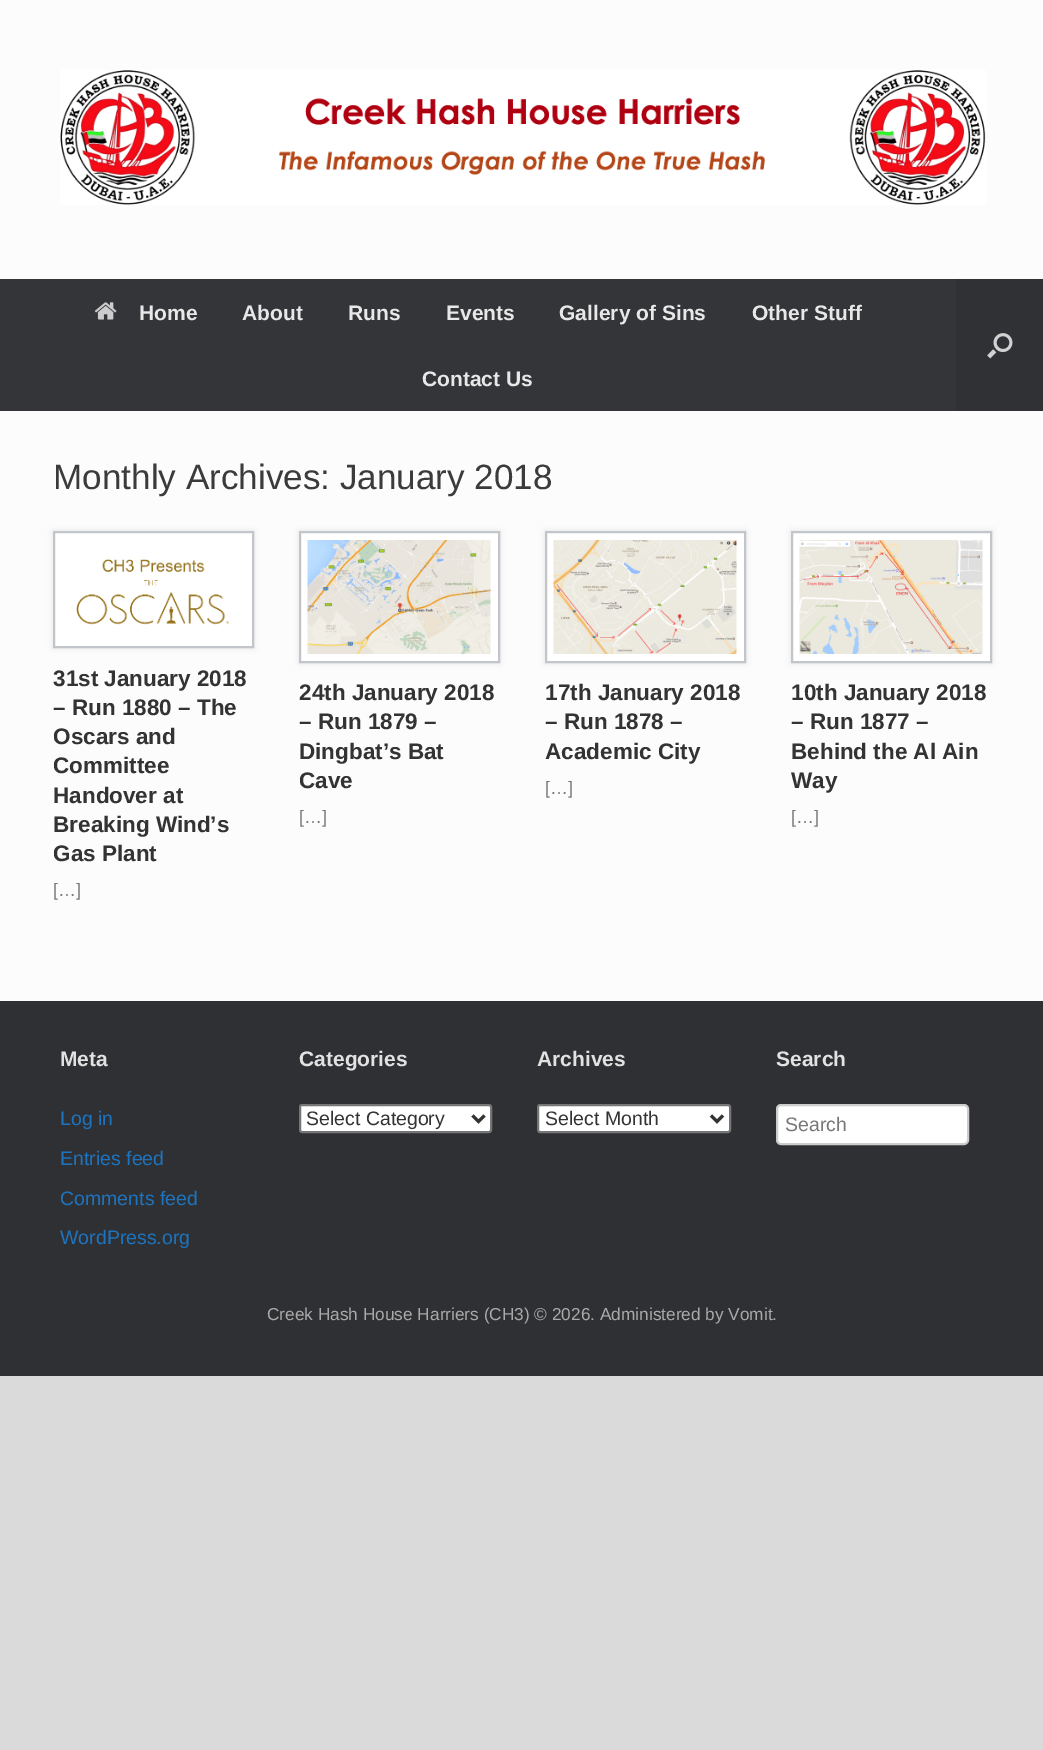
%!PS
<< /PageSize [1043 1750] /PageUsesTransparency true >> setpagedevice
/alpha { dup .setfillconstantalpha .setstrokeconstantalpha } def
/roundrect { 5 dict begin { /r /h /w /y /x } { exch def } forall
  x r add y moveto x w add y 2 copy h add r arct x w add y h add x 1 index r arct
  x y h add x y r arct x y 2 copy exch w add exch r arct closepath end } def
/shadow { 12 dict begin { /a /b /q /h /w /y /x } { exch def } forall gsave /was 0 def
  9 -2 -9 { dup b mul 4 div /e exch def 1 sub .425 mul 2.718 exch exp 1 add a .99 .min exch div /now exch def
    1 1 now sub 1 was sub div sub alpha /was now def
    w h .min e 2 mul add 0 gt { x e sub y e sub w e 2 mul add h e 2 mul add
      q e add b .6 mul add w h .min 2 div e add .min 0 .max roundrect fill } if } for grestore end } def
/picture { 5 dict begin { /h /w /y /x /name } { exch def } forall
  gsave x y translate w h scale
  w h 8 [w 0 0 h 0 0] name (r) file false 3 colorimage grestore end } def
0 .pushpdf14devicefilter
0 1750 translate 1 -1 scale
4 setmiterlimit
0.855 setgray
0 0 1043 1750 rectfill
0.988 setgray
0 0 1043 279 rectfill
(img1.rgb) 60 70 926 135 picture
0.204 0.208 0.22 setrgbcolor
0 279 956 132 rectfill
(img2.rgb) 94 302 23 18 picture
/LiberationSans-Bold [21 0 0 -21 0 0] selectfont
0.91 setgray
139 320 moveto (Home) show
242 320 moveto (About) show
348 320 moveto (Runs) show
446 320 moveto (Events) show
559 320 moveto (Gallery of Sins) show
752 320 moveto (Other Stuff) show
422 386 moveto (Contact Us) show
0.188 0.192 0.204 setrgbcolor
956 279 87 132 rectfill
(img3.rgb) 987 333 26 26 picture
0.988 setgray
0 411 1043 590 rectfill
/LiberationSans-Regular [35.1 0 0 -35.1 0 0] selectfont
0.231 setgray
53 489 moveto (Monthly Archives: January 2018) show
0 setgray
53 531 201 117 0 3 0.1 shadow
1 setgray
newpath 54 532 moveto 253 532 lineto 253 647 lineto 54 647 lineto closepath gsave fill grestore
0.761 0.773 0.792 setrgbcolor
2 setlinewidth
stroke
(img4.rgb) 76 559 153 66 picture
/LiberationSans-Bold [22.5 0 0 -22.5 0 0] selectfont
0.2 setgray
53 686 moveto (31st January 2018) show
53 715 moveto (– Run 1880 – The) show
53 744 moveto (Oscars and) show
53 773 moveto (Committee) show
53 803 moveto (Handover at) show
53 832 moveto (Breaking Wind’s) show
53 861 moveto (Gas Plant) show
/LiberationSans-Regular [18 0 0 -18 0 0] selectfont
0.467 setgray
53 896 moveto ([…]) show
0 setgray
299 531 201 132 0 3 0.1 shadow
1 setgray
newpath 300 532 moveto 499 532 lineto 499 662 lineto 300 662 lineto closepath gsave fill grestore
0.761 0.773 0.792 setrgbcolor
stroke
(img5.rgb) 307 540 184 114 picture
/LiberationSans-Bold [22.5 0 0 -22.5 0 0] selectfont
0.2 setgray
299 700 moveto (24th January 2018) show
299 729 moveto (– Run 1879 –) show
299 759 moveto (Dingbat’s Bat) show
299 788 moveto (Cave) show
/LiberationSans-Regular [18 0 0 -18 0 0] selectfont
0.467 setgray
299 823 moveto ([…]) show
0 setgray
545 531 201 132 0 3 0.1 shadow
1 setgray
newpath 546 532 moveto 745 532 lineto 745 662 lineto 546 662 lineto closepath gsave fill grestore
0.761 0.773 0.792 setrgbcolor
stroke
(img6.rgb) 553 540 184 114 picture
/LiberationSans-Bold [22.5 0 0 -22.5 0 0] selectfont
0.2 setgray
545 700 moveto (17th January 2018) show
545 729 moveto (– Run 1878 –) show
545 759 moveto (Academic City) show
/LiberationSans-Regular [18 0 0 -18 0 0] selectfont
0.467 setgray
545 794 moveto ([…]) show
0 setgray
791 531 201 132 0 3 0.1 shadow
1 setgray
newpath 792 532 moveto 991 532 lineto 991 662 lineto 792 662 lineto closepath gsave fill grestore
0.761 0.773 0.792 setrgbcolor
stroke
(img7.rgb) 799 540 184 114 picture
/LiberationSans-Bold [22.5 0 0 -22.5 0 0] selectfont
0.2 setgray
791 700 moveto (10th January 2018) show
791 729 moveto (– Run 1877 –) show
791 759 moveto (Behind the Al Ain) show
791 788 moveto (Way) show
/LiberationSans-Regular [18 0 0 -18 0 0] selectfont
0.467 setgray
791 823 moveto ([…]) show
0.184 0.188 0.2 setrgbcolor
0 1001 1043 375 rectfill
/LiberationSans-Bold [21 0 0 -21 0 0] selectfont
0.886 setgray
60 1066 moveto (Meta) show
/LiberationSans-Regular [19.5 0 0 -19.5 0 0] selectfont
0.118 0.451 0.745 setrgbcolor
60 1125 moveto (Log in) show
60 1165 moveto (Entries feed) show
60 1205 moveto (Comments feed) show
60 1244 moveto (WordPress.org) show
/LiberationSans-Bold [21 0 0 -21 0 0] selectfont
0.886 setgray
299 1066 moveto (Categories) show
1 setgray
300 1105 191 27 2 roundrect gsave fill grestore
0.463 setgray
stroke
0.2 setgray
3 setlinewidth
newpath 472.5 1115.5 moveto 478.5 1121.5 lineto 484.5 1115.5 lineto stroke
/LiberationSans-Regular [19.5 0 0 -19.5 0 0] selectfont
306 1125 moveto (Select Category) show
/LiberationSans-Bold [21 0 0 -21 0 0] selectfont
0.886 setgray
537 1066 moveto (Archives) show
1 setgray
538 1105 192 27 2 roundrect gsave fill grestore
0.463 setgray
2 setlinewidth
stroke
0.2 setgray
3 setlinewidth
newpath 711 1115.5 moveto 717 1121.5 lineto 723 1115.5 lineto stroke
/LiberationSans-Regular [19.5 0 0 -19.5 0 0] selectfont
545 1125 moveto (Select Month) show
/LiberationSans-Bold [21 0 0 -21 0 0] selectfont
0.886 setgray
776 1066 moveto (Search) show
1 setgray
777 1105 191 39 4 roundrect gsave fill grestore
0.8 setgray
2 setlinewidth
stroke
/LiberationSans-Regular [19.5 0 0 -19.5 0 0] selectfont
0.467 setgray
785 1131 moveto (Search) show
/LiberationSans-Regular [17.25 0 0 -17.25 0 0] selectfont
0.667 setgray
267 1320 moveto (Creek Hash House Harriers \(CH3\) © 2026. Administered by Vomit.) show
.poppdf14devicefilter showpage
